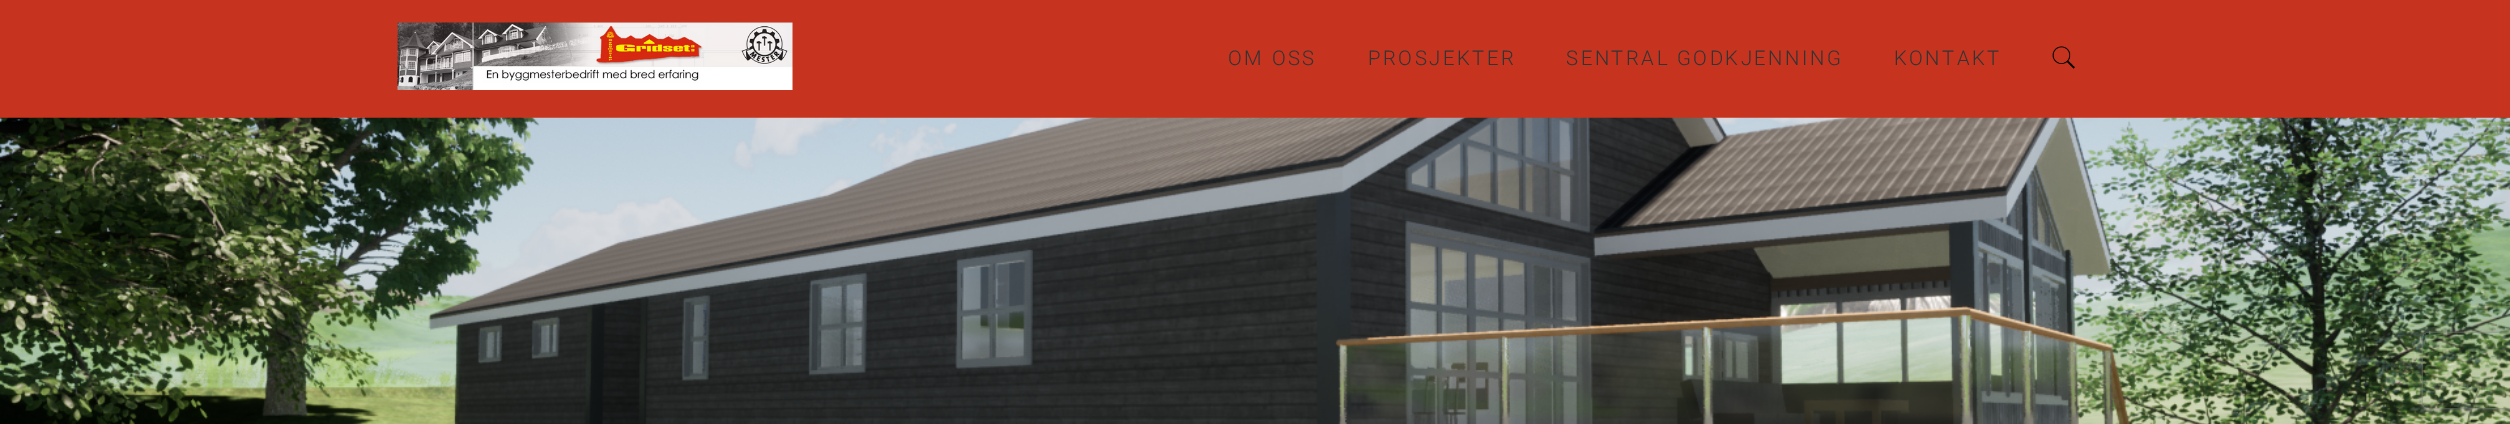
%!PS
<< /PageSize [2510 424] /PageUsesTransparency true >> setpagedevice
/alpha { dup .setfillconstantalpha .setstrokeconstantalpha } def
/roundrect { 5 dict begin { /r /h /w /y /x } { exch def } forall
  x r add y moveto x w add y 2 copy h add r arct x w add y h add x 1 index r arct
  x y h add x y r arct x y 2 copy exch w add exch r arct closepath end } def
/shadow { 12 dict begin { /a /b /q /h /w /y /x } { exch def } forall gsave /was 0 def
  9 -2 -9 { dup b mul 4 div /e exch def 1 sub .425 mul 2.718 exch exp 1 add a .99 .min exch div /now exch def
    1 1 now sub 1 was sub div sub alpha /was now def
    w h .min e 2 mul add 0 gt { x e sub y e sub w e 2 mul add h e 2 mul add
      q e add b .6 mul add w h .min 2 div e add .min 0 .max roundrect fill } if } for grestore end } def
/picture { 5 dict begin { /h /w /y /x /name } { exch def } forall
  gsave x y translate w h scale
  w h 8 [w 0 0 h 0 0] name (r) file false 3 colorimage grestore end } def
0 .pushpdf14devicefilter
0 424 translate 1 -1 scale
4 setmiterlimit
0.776 0.204 0.122 setrgbcolor
0 0 2510 424 rectfill
(img1.rgb) 397 22 396 68 picture
/Roboto-Light [20.25 0 0 -20.25 0 0] selectfont
0.2 setgray
1228 65 moveto 2.5 0 (OM OSS) ashow
1368 65 moveto 2.5 0 (PROSJEKTER) ashow
1566 65 moveto 2.5 0 (SENTRAL GODKJENNING) ashow
1894 65 moveto 2.5 0 (KONTAKT) ashow
(img2.rgb) 2052 46 23 23 picture
(img3.rgb) 0 117 2510 307 picture
gsave
newpath 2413 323 moveto 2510 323 lineto 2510 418 lineto 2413 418 lineto closepath 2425.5 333 moveto 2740.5 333 lineto 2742 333 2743 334 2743 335.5 curveto 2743 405.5 lineto 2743 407 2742 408 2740.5 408 curveto 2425.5 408 lineto 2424 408 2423 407 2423 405.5 curveto 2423 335.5 lineto 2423 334 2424 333 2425.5 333 curveto closepath eoclip newpath
0.502 setgray
2423 333 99 75 2.5 3 1 shadow
grestore
.poppdf14devicefilter showpage
